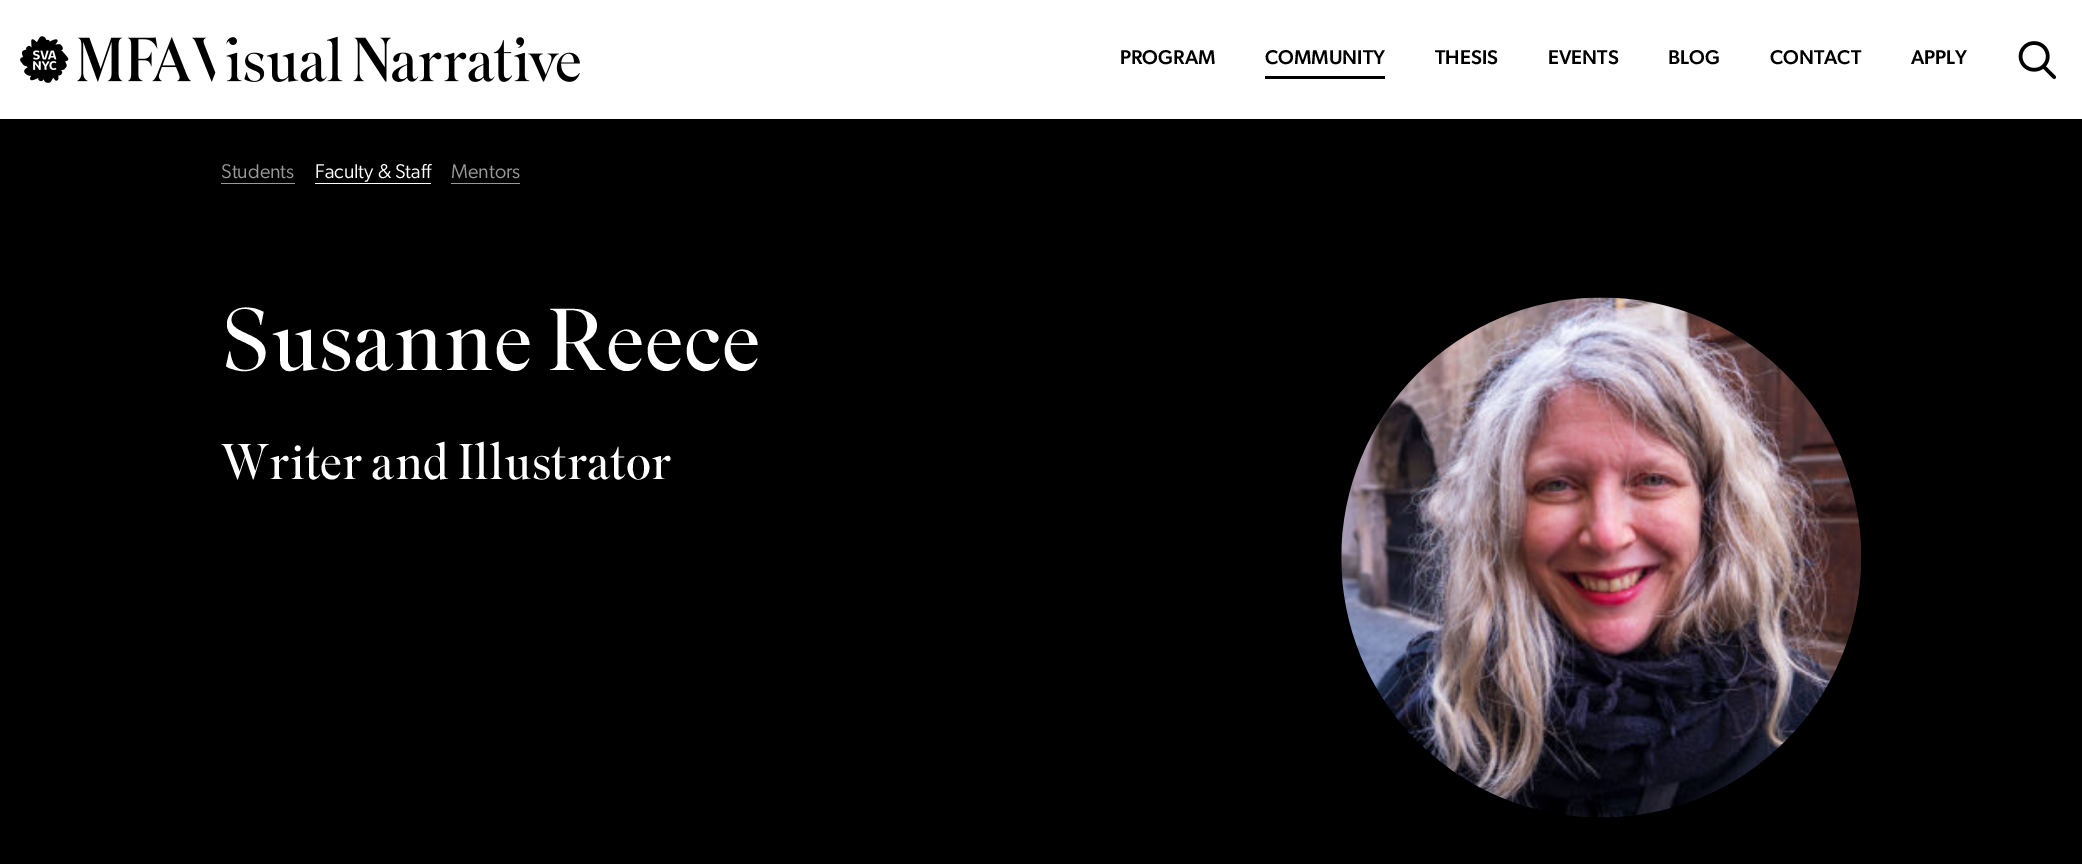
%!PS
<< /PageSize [2082 864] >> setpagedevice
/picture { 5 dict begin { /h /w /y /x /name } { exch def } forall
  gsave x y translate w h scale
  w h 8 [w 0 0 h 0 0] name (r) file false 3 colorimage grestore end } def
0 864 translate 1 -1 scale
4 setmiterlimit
0 setgray
0 0 2082 864 rectfill
1 setgray
0 0 2082 119 rectfill
(img1.rgb) 20 36 560 47 picture
/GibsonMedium-Medium [20 0 0 -20 0 0] selectfont
0 setgray
1120 64 moveto (PROGRAM) show
1265 64 moveto (COMMUNITY) show
1265 76 120 3 rectfill
1435 64 moveto (THESIS) show
1548 64 moveto (EVENTS) show
1668 64 moveto (BLOG) show
1770 64 moveto (CONTACT) show
1911 64 moveto (APPLY) show
(img2.rgb) 2018 41 38 38 picture
/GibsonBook-Regular [20 0 0 -20 0 0] selectfont
0.6 setgray
221 178 moveto (Students) show
221 183 74 1 rectfill
1 setgray
315 178 moveto (Faculty & Staff) show
315 183 116 1 rectfill
0.6 setgray
451 178 moveto (Mentors) show
451 183 69 1 rectfill
/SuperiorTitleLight-Light [87.5 0 0 -87.5 0 0] selectfont
1 setgray
221 370 moveto (Susanne Reece) show
/SuperiorTitleLight-Light [50 0 0 -50 0 0] selectfont
221 479 moveto (Writer and Illustrator) show
(img3.rgb) 1341 297 521 521 picture
showpage
